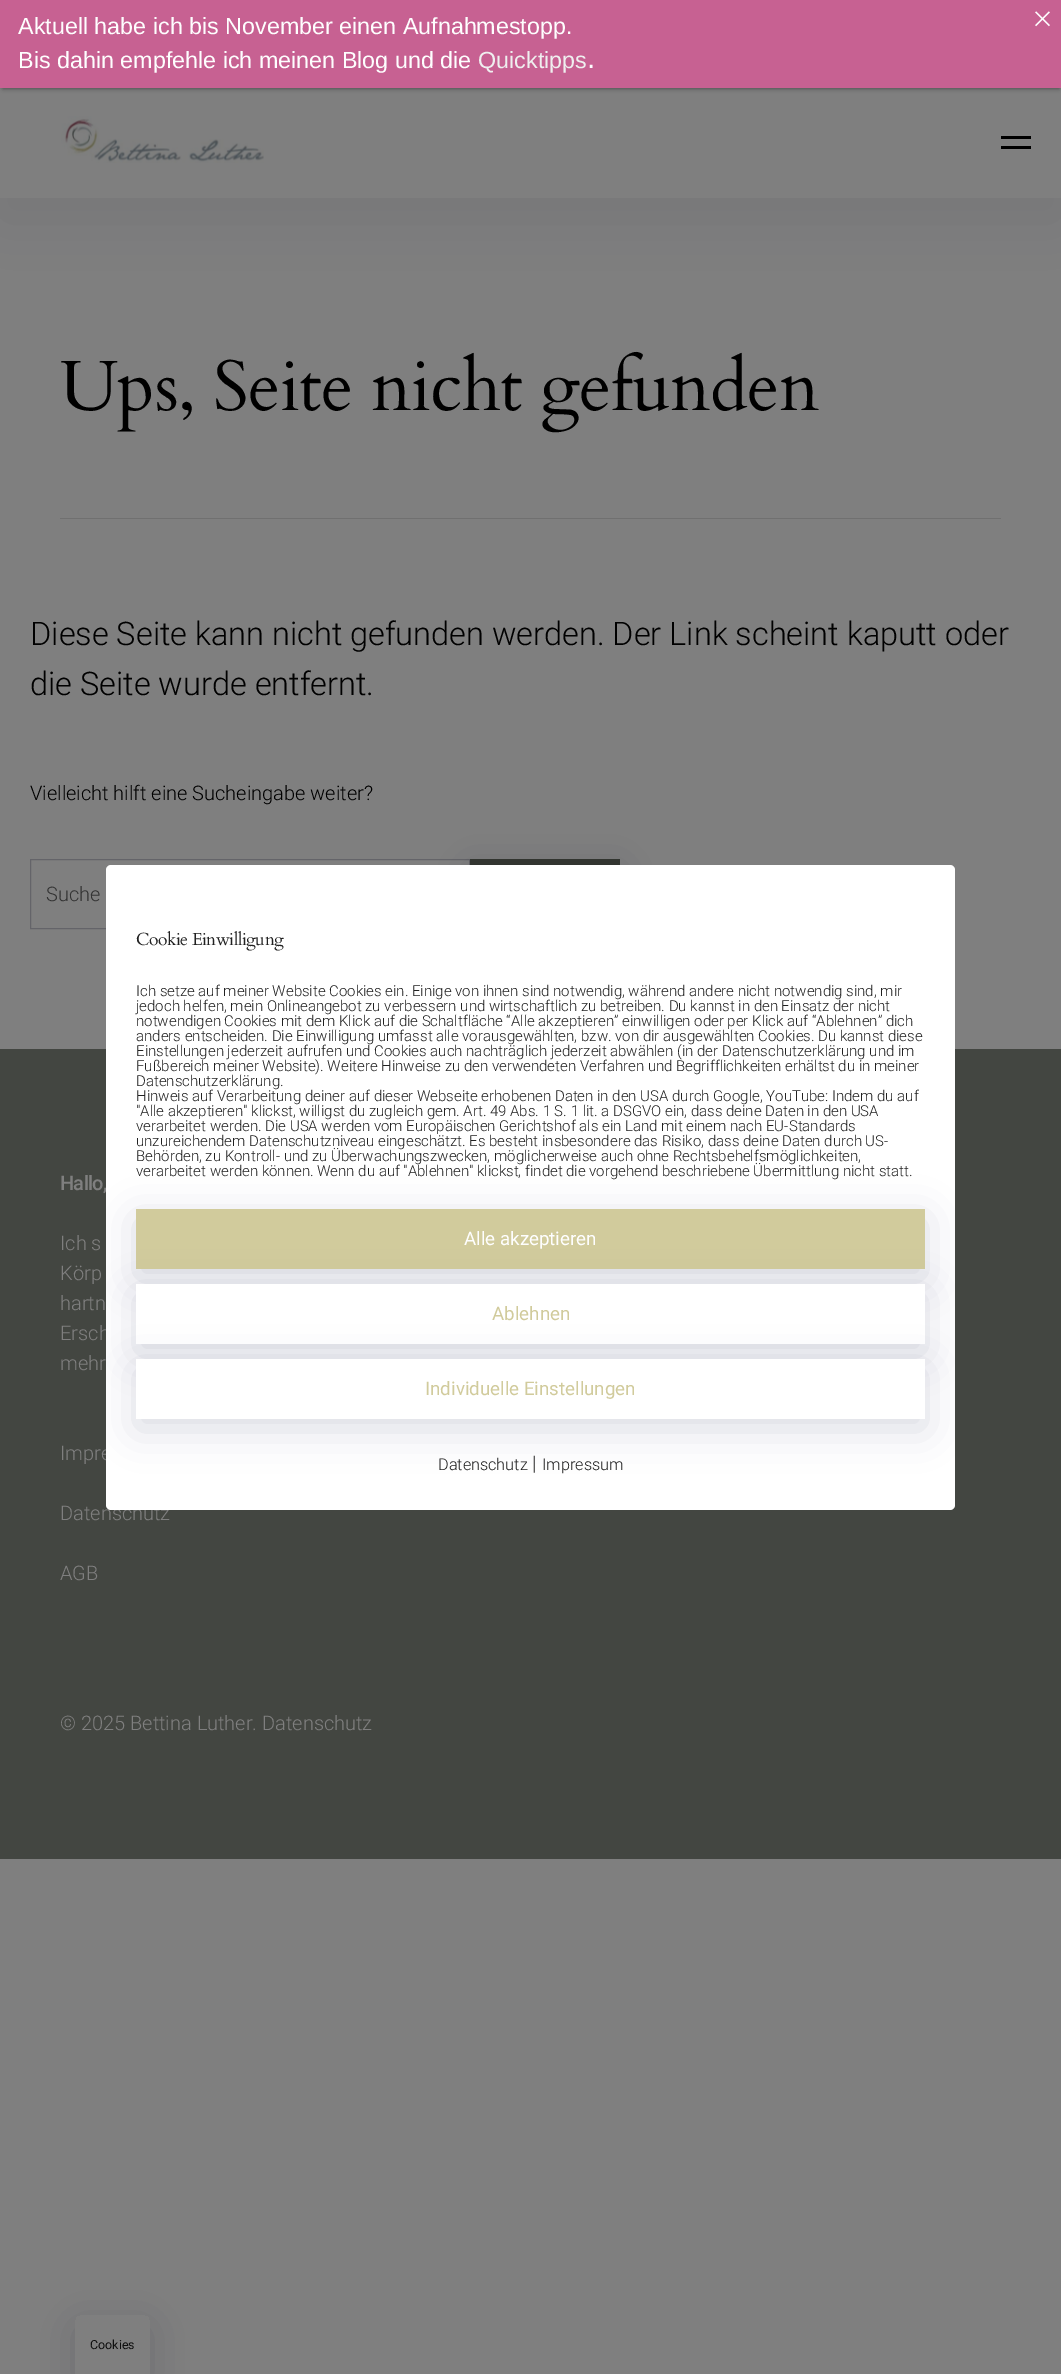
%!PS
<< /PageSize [1061 2374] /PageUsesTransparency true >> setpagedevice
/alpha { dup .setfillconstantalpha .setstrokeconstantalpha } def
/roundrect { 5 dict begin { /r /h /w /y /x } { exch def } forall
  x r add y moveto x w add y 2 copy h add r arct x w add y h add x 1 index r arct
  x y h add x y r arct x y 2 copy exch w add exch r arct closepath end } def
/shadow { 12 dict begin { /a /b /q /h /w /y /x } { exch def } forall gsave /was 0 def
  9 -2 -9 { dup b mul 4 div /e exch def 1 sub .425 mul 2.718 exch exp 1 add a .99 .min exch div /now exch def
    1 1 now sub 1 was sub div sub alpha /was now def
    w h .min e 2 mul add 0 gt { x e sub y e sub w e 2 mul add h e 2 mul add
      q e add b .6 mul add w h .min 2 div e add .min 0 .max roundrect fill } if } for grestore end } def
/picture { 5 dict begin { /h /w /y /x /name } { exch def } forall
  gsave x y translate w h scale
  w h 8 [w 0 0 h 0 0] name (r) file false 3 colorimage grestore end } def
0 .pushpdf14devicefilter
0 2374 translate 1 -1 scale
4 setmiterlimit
1 setgray
0 0 1061 2374 rectfill
0.122 0.125 0.267 setrgbcolor
0 108 1061 110 0 30 0.08 shadow
1 setgray
0 88 1061 110 rectfill
0 setgray
3 5 1056 83 0 2.5 0.5 shadow
0.78 0.38 0.573 setrgbcolor
0 0 1061 88 rectfill
/LiberationSans-Regular [23.3 0 0 -23.3 0 0] selectfont
0.996 setgray
18 34 moveto (Aktuell habe ich bis November einen Aufnahmestopp.) show
18 68 moveto (Bis dahin empfehle ich meinen Blog und die) show
0.937 setgray
478 68 moveto (Quicktipps) show
/LiberationSans-Regular [30 0 0 -30 0 0] selectfont
0.996 setgray
587 68 moveto (.) show
(img1.rgb) 1035 11 15 16 picture
(img2.rgb) 61 116 203 47 picture
0 setgray
1001 136 30 3 rectfill
1001 146 30 3 rectfill
0.878 setgray
60 518 941 1 rectfill
/Cardo-Regular [71.25 0 0 -71.25 0 0] selectfont
0 setgray
60 410 moveto -0.75 0 (Ups, Seite nicht gefunden) ashow
/Roboto-Light [32.5 0 0 -32.5 0 0] selectfont
30 645 moveto (Diese Seite kann nicht gefunden werden. Der Link scheint kaputt oder) show
30 695 moveto (die Seite wurde entfernt.) show
/Roboto-Light [20 0 0 -20 0 0] selectfont
30 800 moveto (Vielleicht hilft eine Sucheingabe weiter?) show
0.788 0.788 0.824 setrgbcolor
30.5 859.5 439 69 rectstroke
0.4 setgray
46 901 moveto (Suche) show
0.122 0.125 0.267 setrgbcolor
470 869 150 70 0 20 0.16 shadow
0.392 0.42 0.38 setrgbcolor
470 859 150 6 rectfill
0.529 0.549 0.51 setrgbcolor
0 1049 1061 810 rectfill
/Roboto-Medium [20 0 0 -20 0 0] selectfont
0.996 setgray
60 1190 moveto -0.75 0 (Hallo,) ashow
/Roboto-Light [20 0 0 -20 0 0] selectfont
60 1250 moveto (Ich s) show
60 1280 moveto (Körp) show
60 1310 moveto (hartn) show
60 1340 moveto (Ersch) show
60 1370 moveto (mehr) show
60 1460 moveto (Impre) show
60 1520 moveto (Datenschutz) show
60 1580 moveto (AGB) show
60 1730 moveto (© 2025 Bettina Luther. Datenschutz) show
gsave
newpath 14 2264 moveto 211 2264 lineto 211 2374 lineto 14 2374 lineto closepath 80 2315 moveto 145 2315 lineto 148 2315 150 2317 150 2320 curveto 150 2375 lineto 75 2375 lineto 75 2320 lineto 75 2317 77 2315 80 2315 curveto closepath eoclip newpath
0.122 0.125 0.267 setrgbcolor
75 2325 75 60 5 20 0.16 shadow
grestore
/Roboto-Regular [12.5 0 0 -12.5 0 0] selectfont
0.129 setgray
90 2349 moveto (Cookies) show
0.5 alpha
0 setgray
0 88 1061 2286 rectfill
1 alpha
1 setgray
106 865 849 645 5 roundrect fill
/Cardo-Regular [17.5 0 0 -17.5 0 0] selectfont
0.129 setgray
136 945 moveto -0.5 0 (Cookie Einwilligung) ashow
/Roboto-Light [15 0 0 -15 0 0] selectfont
136 996 moveto (Ich setze auf meiner Website Cookies ein. Einige von ihnen sind notwendig, während andere nicht notwendig sind, mir) show
136 1011 moveto (jedoch helfen, mein Onlineangebot zu verbessern und wirtschaftlich zu betreiben. Du kannst in den Einsatz der nicht) show
136 1026 moveto (notwendigen Cookies mit dem Klick auf die Schaltfläche “Alle akzeptieren” einwilligen oder per Klick auf “Ablehnen” dich) show
136 1041 moveto (anders entscheiden. Die Einwilligung umfasst alle vorausgewählten, bzw. von dir ausgewählten Cookies. Du kannst diese) show
136 1056 moveto (Einstellungen jederzeit aufrufen und Cookies auch nachträglich jederzeit abwählen \(in der Datenschutzerklärung und im) show
136 1071 moveto (Fußbereich meiner Website\). Weitere Hinweise zu den verwendeten Verfahren und Begrifflichkeiten erhältst du in meiner) show
136 1086 moveto (Datenschutzerklärung.) show
136 1101 moveto (Hinweis auf Verarbeitung deiner auf dieser Webseite erhobenen Daten in den USA durch Google, YouTube: Indem du auf) show
136 1116 moveto ("Alle akzeptieren" klickst, willigst du zugleich gem. Art. 49 Abs. 1 S. 1 lit. a DSGVO ein, dass deine Daten in den USA) show
136 1131 moveto (verarbeitet werden. Die USA werden vom Europäischen Gerichtshof als ein Land mit einem nach EU-Standards) show
136 1146 moveto (unzureichendem Datenschutzniveau eingeschätzt. Es besteht insbesondere das Risiko, dass deine Daten durch US-) show
136 1161 moveto (Behörden, zu Kontroll- und zu Überwachungszwecken, möglicherweise auch ohne Rechtsbehelfsmöglichkeiten,) show
136 1176 moveto (verarbeitet werden können. Wenn du auf "Ablehnen" klickst, findet die vorgehend beschriebene Übermittlung nicht statt.) show
0.122 0.125 0.267 setrgbcolor
136 1219 789 60 0 20 0.16 shadow
0.82 0.796 0.612 setrgbcolor
136 1209 789 60 rectfill
/Roboto-Regular [18.75 0 0 -18.75 0 0] selectfont
0.996 setgray
464 1245 moveto (Alle akzeptieren) show
0.122 0.125 0.267 setrgbcolor
136 1294 789 60 0 20 0.16 shadow
1 setgray
136 1284 789 60 rectfill
0.82 0.796 0.612 setrgbcolor
492 1320 moveto (Ablehnen) show
0.122 0.125 0.267 setrgbcolor
136 1369 789 60 0 20 0.16 shadow
1 setgray
136 1359 789 60 rectfill
0.82 0.796 0.612 setrgbcolor
425 1395 moveto (Individuelle Einstellungen) show
/Roboto-Light [16.25 0 0 -16.25 0 0] selectfont
0.129 setgray
438 1470 moveto (Datenschutz) show
/Roboto-Light [20 0 0 -20 0 0] selectfont
532 1470 moveto (|) show
/Roboto-Light [16.25 0 0 -16.25 0 0] selectfont
542 1470 moveto (Impressum) show
.poppdf14devicefilter showpage
